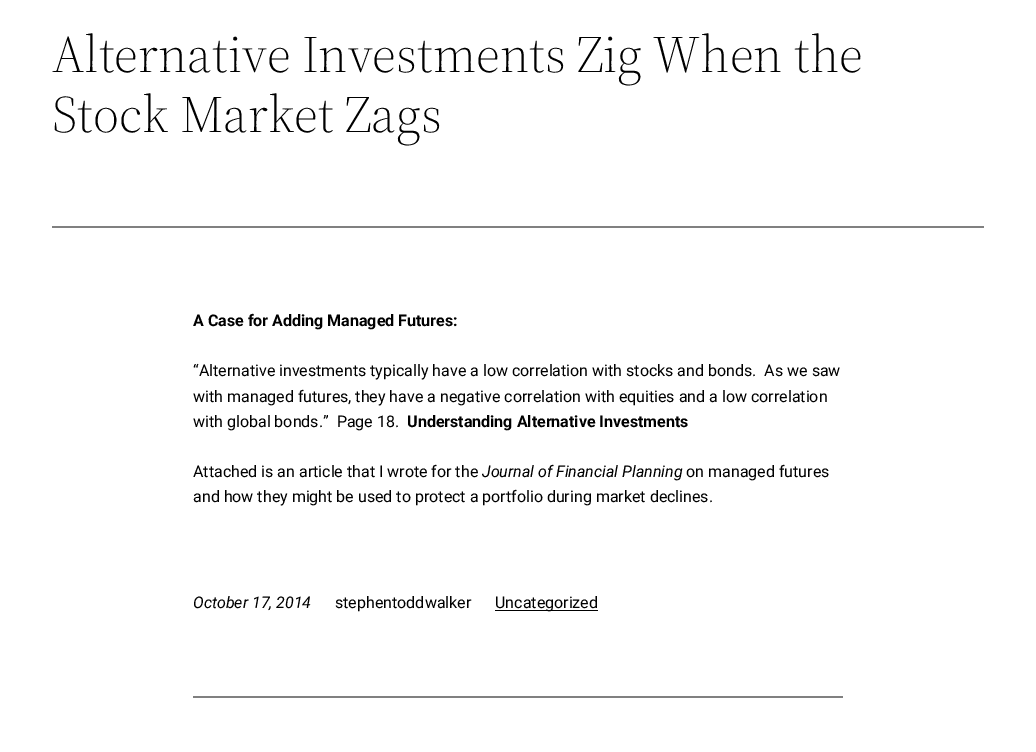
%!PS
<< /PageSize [1036 752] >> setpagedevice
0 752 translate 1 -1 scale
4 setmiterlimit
1 setgray
0 0 1036 752 rectfill
/SourceSerif4-Light [52 0 0 -52 0 0] selectfont
0 setgray
52 72 moveto (Alternative Investments Zig When the) show
52 132 moveto (Stock Market Zags) show
0.502 setgray
52 226 932 2 rectfill
/Roboto-Bold [16 0 0 -16 0 0] selectfont
0 setgray
193 326 moveto (A Case for Adding Managed Futures:) show
/Roboto-Regular [16 0 0 -16 0 0] selectfont
193 376 moveto (“Alternative investments typically have a low correlation with stocks and bonds.  As we saw) show
193 402 moveto (with managed futures, they have a negative correlation with equities and a low correlation) show
193 427 moveto (with global bonds.”  Page 18.) show
/Roboto-Bold [16 0 0 -16 0 0] selectfont
407 427 moveto (Understanding Alternative Investments) show
/Roboto-Regular [16 0 0 -16 0 0] selectfont
193 477 moveto (Attached is an article that I wrote for the) show
/Roboto-Italic [16 0 0 -16 0 0] selectfont
482 477 moveto (Journal of Financial Planning) show
/Roboto-Regular [16 0 0 -16 0 0] selectfont
686 477 moveto (on managed futures) show
193 502 moveto (and how they might be used to protect a portfolio during market declines.) show
/Roboto-Italic [16 0 0 -16 0 0] selectfont
193 608 moveto (October 17, 2014) show
/Roboto-Regular [16 0 0 -16 0 0] selectfont
335 608 moveto (stephentoddwalker) show
495 610 103 1 rectfill
495 608 moveto (Uncategorized) show
0.502 setgray
193 696 650 2 rectfill
showpage
